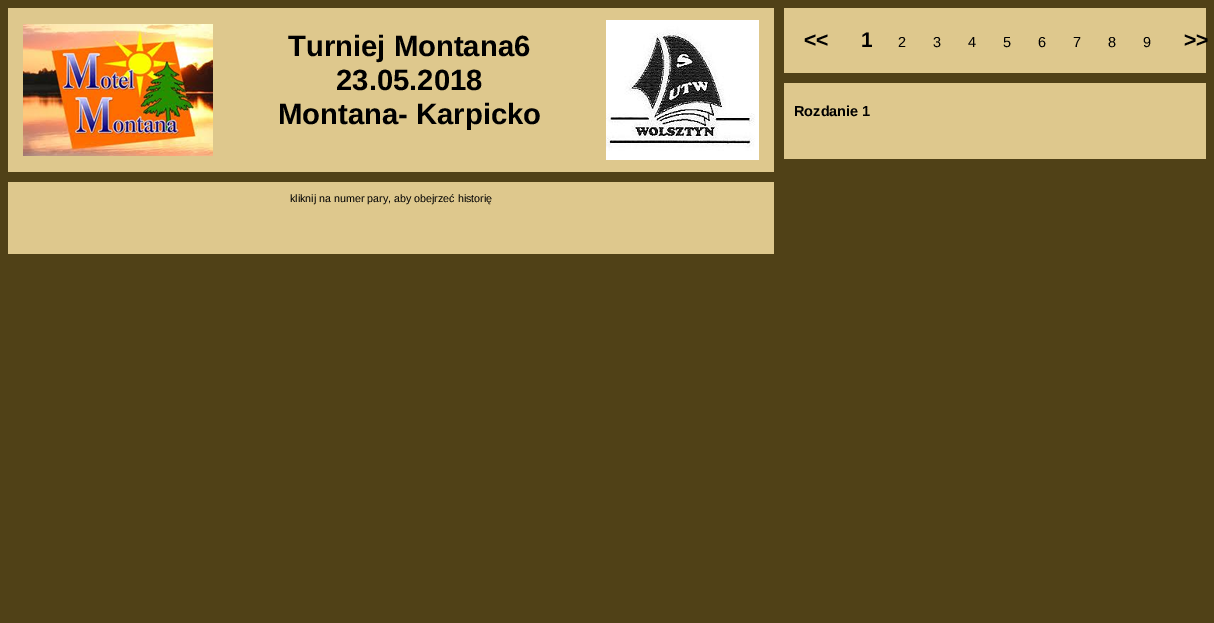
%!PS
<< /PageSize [1214 623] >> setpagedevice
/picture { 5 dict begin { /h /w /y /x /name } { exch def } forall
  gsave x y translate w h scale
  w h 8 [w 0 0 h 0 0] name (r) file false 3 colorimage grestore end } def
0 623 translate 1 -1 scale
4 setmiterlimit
0.314 0.255 0.09 setrgbcolor
0 0 1214 623 rectfill
0.871 0.784 0.553 setrgbcolor
8 8 766 164 rectfill
(img1.rgb) 23 24 190 132 picture
/LiberationSans-Bold [29.25 0 0 -29.25 0 0] selectfont
0 setgray
288 56 moveto (Turniej Montana6) show
336 90 moveto (23.05.2018) show
278 124 moveto (Montana- Karpicko) show
(img2.rgb) 606 20 153 140 picture
0.871 0.784 0.553 setrgbcolor
8 182 766 72 rectfill
/LiberationSans-Regular [10.7 0 0 -10.7 0 0] selectfont
0 setgray
290 202 moveto (kliknij na numer pary, aby obejrzeć historię) show
0.871 0.784 0.553 setrgbcolor
784 8 422 65 rectfill
/LiberationSans-Bold [21 0 0 -21 0 0] selectfont
0 setgray
804 47 moveto (<<) show
861 47 moveto (1) show
/LiberationSans-Regular [14.5 0 0 -14.5 0 0] selectfont
898 47 moveto (2) show
933 47 moveto (3) show
968 47 moveto (4) show
1003 47 moveto (5) show
1038 47 moveto (6) show
1073 47 moveto (7) show
1108 47 moveto (8) show
1143 47 moveto (9) show
/LiberationSans-Bold [21 0 0 -21 0 0] selectfont
1184 47 moveto (>>) show
0.871 0.784 0.553 setrgbcolor
784 83 422 76 rectfill
/LiberationSans-Bold [14.5 0 0 -14.5 0 0] selectfont
0 setgray
794 116 moveto (Rozdanie 1) show
showpage
